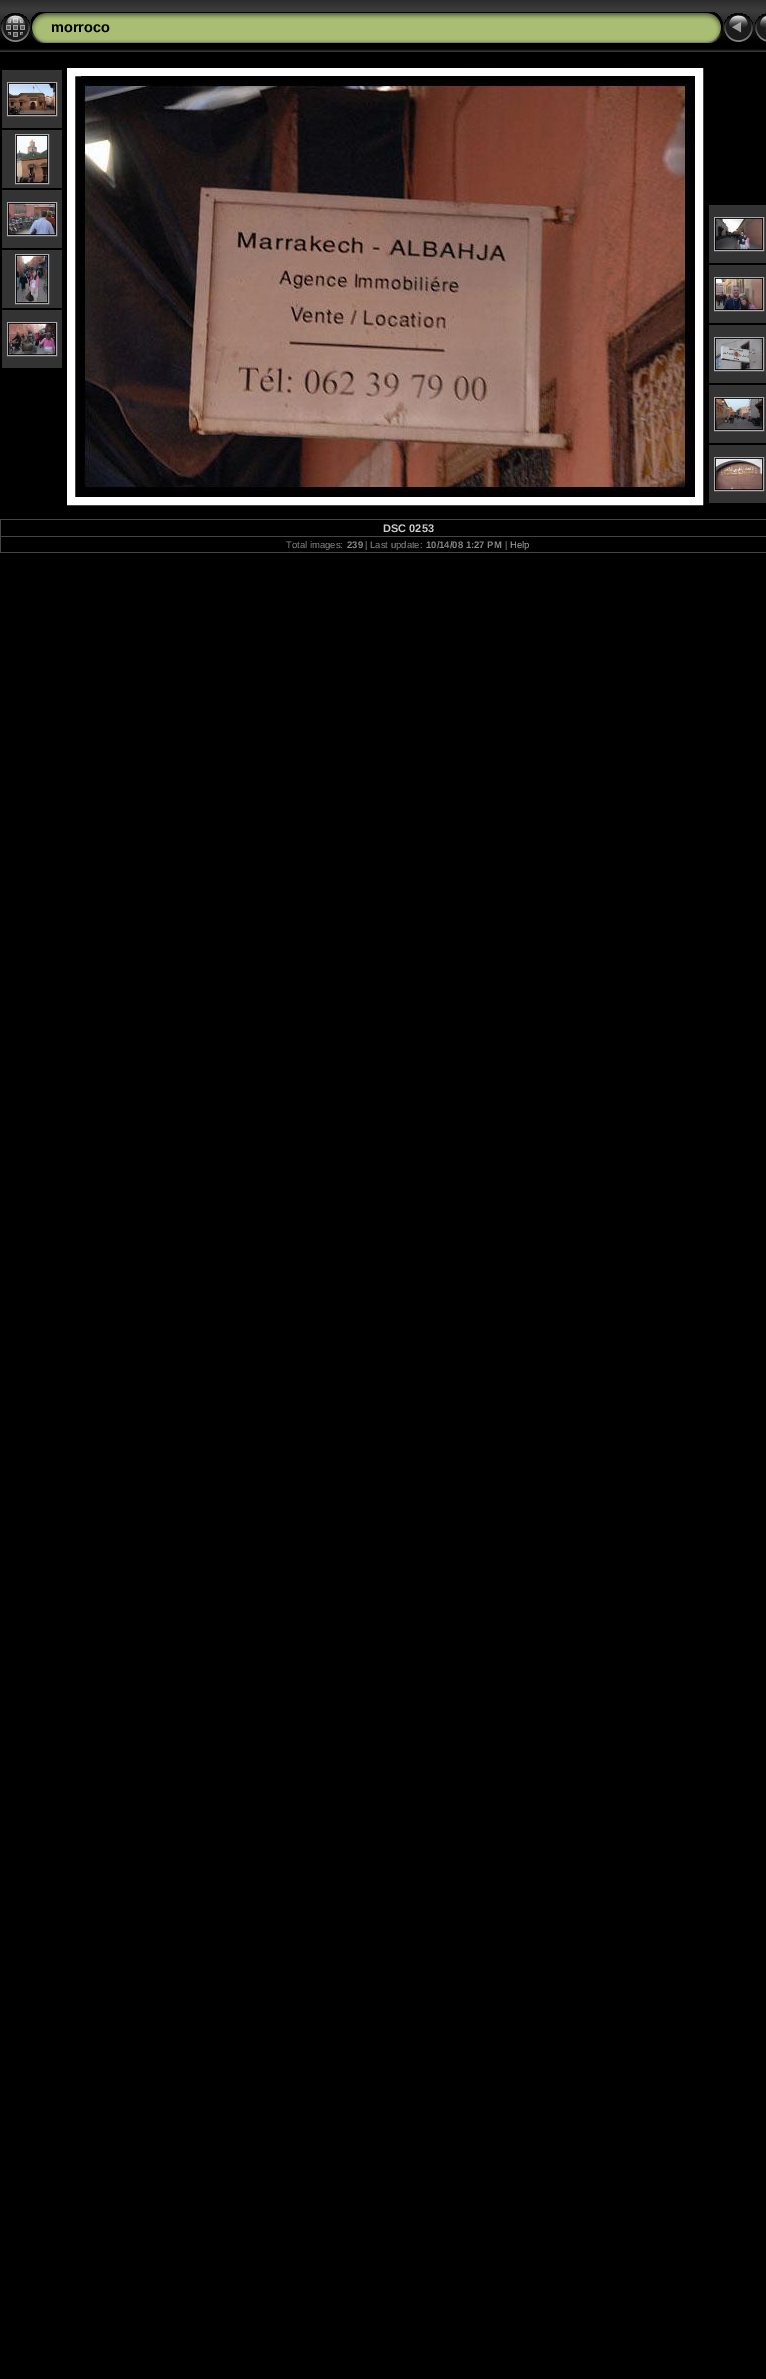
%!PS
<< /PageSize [766 2379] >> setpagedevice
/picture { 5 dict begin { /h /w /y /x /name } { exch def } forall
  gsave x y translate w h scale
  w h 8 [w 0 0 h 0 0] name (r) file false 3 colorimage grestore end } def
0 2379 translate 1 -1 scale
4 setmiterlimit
0 setgray
0 0 766 2379 rectfill
(img1.rgb) 0 0 766 52 picture
(img2.rgb) 1 13 29 29 picture
(img3.rgb) 31 12 20 31 picture
(img4.rgb) 51 12 652 31 picture
/LiberationSans-Bold [14.5 0 0 -14.5 0 0] selectfont
51 32 moveto (morroco) show
(img5.rgb) 703 12 20 31 picture
(img6.rgb) 724 13 29 29 picture
(img7.rgb) 755 13 11 29 picture
0.2 setgray
2 70 60 58 rectfill
0.667 setgray
7.5 82.5 49 33 rectstroke
(img8.rgb) 8 83 48 32 picture
0.2 setgray
2 130 60 58 rectfill
0.667 setgray
15.5 134.5 33 49 rectstroke
(img9.rgb) 16 135 32 48 picture
0.2 setgray
2 190 60 58 rectfill
0.667 setgray
7.5 202.5 49 33 rectstroke
(img10.rgb) 8 203 48 32 picture
0.2 setgray
2 250 60 58 rectfill
0.667 setgray
15.5 254.5 33 49 rectstroke
(img11.rgb) 16 255 32 48 picture
0.2 setgray
2 310 60 58 rectfill
0.667 setgray
7.5 322.5 49 33 rectstroke
(img12.rgb) 8 323 48 32 picture
1 setgray
8 setlinewidth
71 72 628 429 rectstroke
(img13.rgb) 81 76 614 416 picture
0.2 setgray
709 205 57 58 rectfill
0.667 setgray
1 setlinewidth
714.5 217.5 49 33 rectstroke
(img14.rgb) 715 218 48 32 picture
0.2 setgray
709 265 57 58 rectfill
0.667 setgray
714.5 277.5 49 33 rectstroke
(img15.rgb) 715 278 48 32 picture
0.2 setgray
709 325 57 58 rectfill
0.667 setgray
714.5 337.5 49 33 rectstroke
(img16.rgb) 715 338 48 32 picture
0.2 setgray
709 385 57 58 rectfill
0.667 setgray
714.5 397.5 49 33 rectstroke
(img17.rgb) 715 398 48 32 picture
0.2 setgray
709 445 57 58 rectfill
0.667 setgray
714.5 457.5 49 33 rectstroke
(img18.rgb) 715 458 48 32 picture
0.267 setgray
0 519 766 1 rectfill
0 552 766 1 rectfill
0 519 1 34 rectfill
/LiberationSans-Bold [11 0 0 -11 0 0] selectfont
0.8 setgray
383 532 moveto (DSC 0253) show
0.267 setgray
0 536 766 1 rectfill
/LiberationSans-Regular [9.5 0 0 -9.5 0 0] selectfont
0.533 setgray
286 548 moveto (Total images:) show
/LiberationSans-Bold [9.5 0 0 -9.5 0 0] selectfont
347 548 moveto (239) show
/LiberationSans-Regular [9.5 0 0 -9.5 0 0] selectfont
365 548 moveto (| Last update:) show
/LiberationSans-Bold [9.5 0 0 -9.5 0 0] selectfont
426 548 moveto (10/14/08 1:27 PM) show
/LiberationSans-Regular [9.5 0 0 -9.5 0 0] selectfont
505 548 moveto (|) show
0.667 setgray
510 548 moveto (Help) show
showpage
